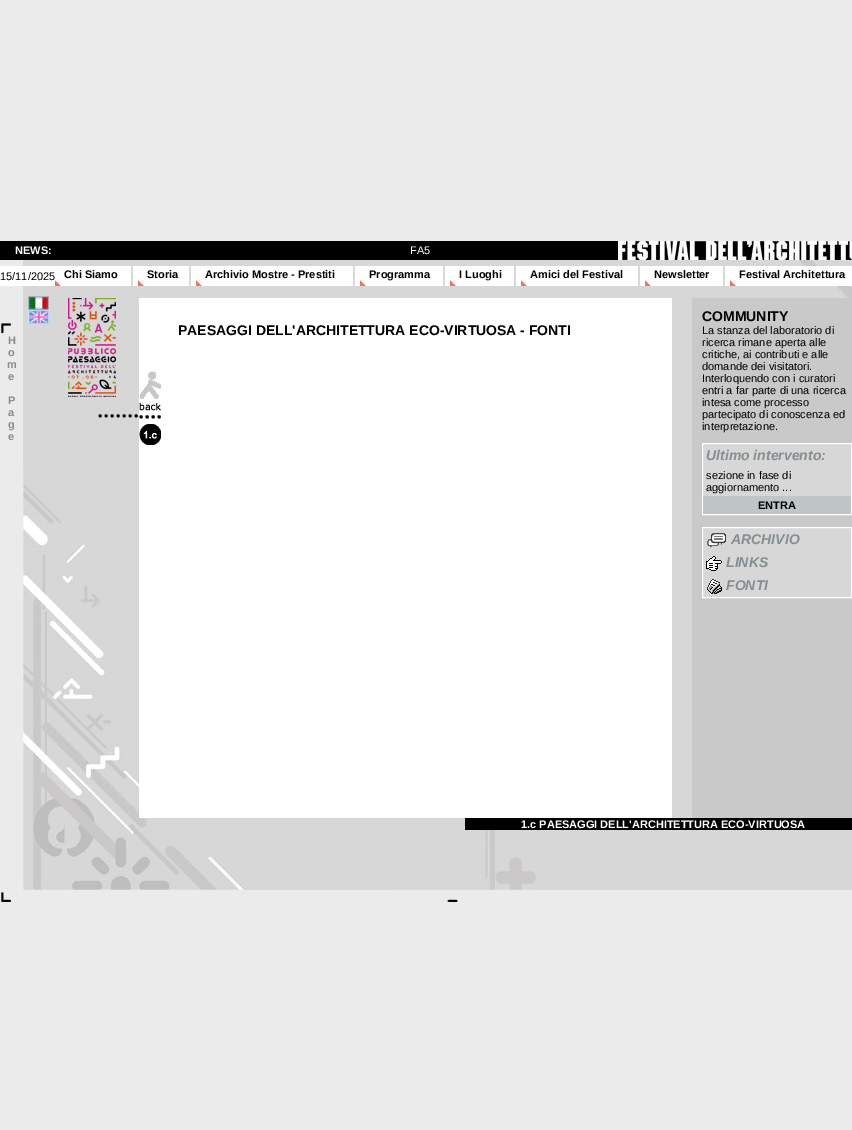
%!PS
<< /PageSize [852 1130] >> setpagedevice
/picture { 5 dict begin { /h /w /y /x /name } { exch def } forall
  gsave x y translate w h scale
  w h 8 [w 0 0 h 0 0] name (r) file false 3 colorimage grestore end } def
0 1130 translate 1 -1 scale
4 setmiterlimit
0.922 setgray
0 0 852 1130 rectfill
0 setgray
0 241 618 19 rectfill
/LiberationSans-Bold [11 0 0 -11 0 0] selectfont
1 setgray
15 254 moveto (NEWS:) show
/LiberationSans-Regular [11 0 0 -11 0 0] selectfont
410 254 moveto (FA5) show
(img1.rgb) 618 241 234 19 picture
0.843 setgray
23 260 829 6 rectfill
(img2.rgb) 799 260 19 6 picture
1 setgray
0 266 852 20 rectfill
0 setgray
0 280 moveto (15/11/2025) show
/LiberationSans-Bold [11 0 0 -11 0 0] selectfont
64 278 moveto (Chi Siamo) show
(img3.rgb) 55 280 6 6 picture
0.847 setgray
131 266 2 20 rectfill
0 setgray
147 278 moveto (Storia) show
(img3.rgb) 138 280 6 6 picture
0.847 setgray
189 266 2 20 rectfill
0 setgray
205 278 moveto (Archivio Mostre - Prestiti) show
(img3.rgb) 196 280 6 6 picture
0.847 setgray
353 266 2 20 rectfill
0 setgray
369 278 moveto (Programma) show
(img3.rgb) 360 280 6 6 picture
0.847 setgray
443 266 2 20 rectfill
0 setgray
459 278 moveto (I Luoghi) show
(img3.rgb) 450 280 6 6 picture
0.847 setgray
514 266 2 20 rectfill
0 setgray
530 278 moveto (Amici del Festival) show
(img3.rgb) 521 280 6 6 picture
0.847 setgray
638 266 2 20 rectfill
0 setgray
654 278 moveto (Newsletter) show
(img3.rgb) 645 280 6 6 picture
0.847 setgray
723 266 2 20 rectfill
0 setgray
739 278 moveto (Festival Architettura) show
(img3.rgb) 730 280 6 6 picture
(img4.rgb) 0 319 16 15 picture
0.549 setgray
8 344 moveto (H) show
8 356 moveto (o) show
7 368 moveto (m) show
8 380 moveto (e) show
8 404 moveto (P) show
8 416 moveto (a) show
8 428 moveto (g) show
8 440 moveto (e) show
0.843 setgray
23 286 45 182 rectfill
(img5.rgb) 23 468 45 422 picture
(img6.rgb) 28 296 21 14 picture
(img7.rgb) 28 310 21 14 picture
68 286 784 604 rectfill
(img8.rgb) 68 543 176 347 picture
(img9.rgb) 394 818 143 72 picture
(img10.rgb) 837 286 15 12 picture
(img11.rgb) 68 298 70 120 picture
1 setgray
139 298 533 520 rectfill
(img12.rgb) 139 371 22 48 picture
(img13.rgb) 139 424 22 21 picture
/LiberationSans-Bold [14 0 0 -14 0 0] selectfont
0 setgray
178 335 moveto (PAESAGGI DELL'ARCHITETTURA ECO-VIRTUOSA - FONTI) show
0.788 setgray
692 298 160 520 rectfill
0 setgray
702 321 moveto (COMMUNITY) show
/LiberationSans-Regular [11 0 0 -11 0 0] selectfont
702 334 moveto (La stanza del laboratorio di) show
702 346 moveto (ricerca rimane aperta alle) show
702 358 moveto (critiche, ai contributi e alle) show
702 370 moveto (domande dei visitatori.) show
702 382 moveto (Interloquendo con i curatori) show
702 394 moveto (entri a far parte di una ricerca) show
702 406 moveto (intesa come processo) show
702 418 moveto (partecipato di conoscenza ed) show
702 430 moveto (interpretazione.) show
0.843 setgray
703 444 148 52 rectfill
1 setgray
702.5 443.5 149 71 rectstroke
/LiberationSans-BoldItalic [14 0 0 -14 0 0] selectfont
0.525 0.557 0.569 setrgbcolor
706 460 moveto (Ultimo intervento:) show
/LiberationSans-Regular [11 0 0 -11 0 0] selectfont
0 setgray
706 479 moveto (sezione in fase di) show
706 491 moveto (aggiornamento ...) show
0.753 0.773 0.78 setrgbcolor
703 496 148 18 rectfill
/LiberationSans-Bold [11 0 0 -11 0 0] selectfont
0 setgray
758 509 moveto (ENTRA) show
0.843 setgray
newpath 702.5 527.5 moveto 851.5 527.5 lineto 851.5 597.5 lineto 702.5 597.5 lineto closepath gsave fill grestore
1 setgray
stroke
(img14.rgb) 707 533 19 14 picture
/LiberationSans-BoldItalic [14 0 0 -14 0 0] selectfont
0.525 0.557 0.569 setrgbcolor
731 544 moveto (ARCHIVIO) show
(img15.rgb) 706 556 16 15 picture
726 567 moveto (LINKS) show
(img16.rgb) 707 579 15 15 picture
726 590 moveto (FONTI) show
0 setgray
465 818 387 12 rectfill
/LiberationSans-Bold [11 0 0 -11 0 0] selectfont
1 setgray
521 828 moveto (1.c PAESAGGI DELL'ARCHITETTURA ECO-VIRTUOSA) show
(img17.rgb) 0 891 12 11 picture
(img18.rgb) 444 899 14 3 picture
showpage
